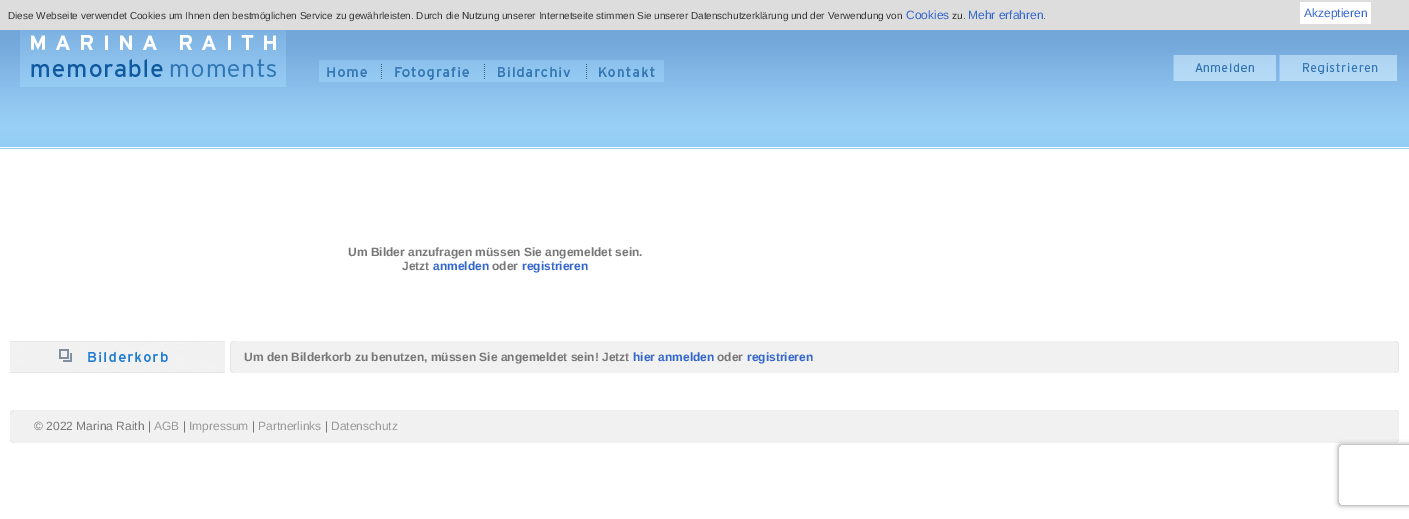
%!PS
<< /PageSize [1409 519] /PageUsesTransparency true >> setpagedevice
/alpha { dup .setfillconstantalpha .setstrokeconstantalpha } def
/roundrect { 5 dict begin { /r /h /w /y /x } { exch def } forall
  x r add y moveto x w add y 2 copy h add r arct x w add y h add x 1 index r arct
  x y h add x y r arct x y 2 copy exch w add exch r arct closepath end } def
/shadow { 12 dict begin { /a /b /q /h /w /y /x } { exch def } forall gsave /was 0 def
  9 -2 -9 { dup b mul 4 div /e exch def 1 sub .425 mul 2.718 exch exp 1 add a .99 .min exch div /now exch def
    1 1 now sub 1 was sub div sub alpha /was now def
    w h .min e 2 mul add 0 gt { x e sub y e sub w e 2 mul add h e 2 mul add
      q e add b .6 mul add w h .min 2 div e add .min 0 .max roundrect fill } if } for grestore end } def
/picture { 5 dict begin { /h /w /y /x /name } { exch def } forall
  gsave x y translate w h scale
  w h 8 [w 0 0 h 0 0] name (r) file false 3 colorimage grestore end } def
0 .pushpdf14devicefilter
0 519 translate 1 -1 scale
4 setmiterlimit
1 setgray
0 0 1409 519 rectfill
0.867 setgray
0 0 1409 30 rectfill
/LiberationSans-Regular [10 0 0 -10 0 0] selectfont
0.2 setgray
8 19 moveto (Diese Webseite verwendet Cookies um Ihnen den bestmöglichen Service zu gewährleisten. Durch die Nutzung unserer Internetseite stimmen Sie unserer Datenschutzerklärung und der Verwendung von) show
/LiberationSans-Regular [12 0 0 -12 0 0] selectfont
0.2 0.4 0.8 setrgbcolor
906 19 moveto (Cookies) show
/LiberationSans-Regular [10 0 0 -10 0 0] selectfont
0.2 setgray
952 19 moveto (zu.) show
/LiberationSans-Regular [12 0 0 -12 0 0] selectfont
0.2 0.4 0.8 setrgbcolor
968 19 moveto (Mehr erfahren) show
/LiberationSans-Regular [10 0 0 -10 0 0] selectfont
0.2 setgray
1043 19 moveto (.) show
1 setgray
1300 2 71 22 rectfill
/LiberationSans-Regular [12 0 0 -12 0 0] selectfont
0.2 0.4 0.8 setrgbcolor
1304 17 moveto (Akzeptieren) show
(img1.rgb) 0 30 1409 119 picture
(img2.rgb) 20 30 266 57 picture
(img3.rgb) 319 60 61 22 picture
(img4.rgb) 380 60 2 22 picture
(img5.rgb) 382 60 101 22 picture
(img4.rgb) 483 60 2 22 picture
(img6.rgb) 485 60 100 22 picture
(img4.rgb) 585 60 2 22 picture
(img7.rgb) 587 60 77 22 picture
(img8.rgb) 1173 55 103 26 picture
(img9.rgb) 1279 55 118 26 picture
/LiberationSans-Bold [12 0 0 -12 0 0] selectfont
0.467 setgray
348 256 moveto (Um Bilder anzufragen müssen Sie angemeldet sein.) show
402 270 moveto (Jetzt) show
0.2 0.4 0.8 setrgbcolor
433 270 moveto (anmelden) show
0.467 setgray
492 270 moveto (oder) show
0.2 0.4 0.8 setrgbcolor
522 270 moveto (registrieren) show
(img10.rgb) 10 341 215 32 picture
(img11.rgb) 230 341 4 32 picture
0.945 setgray
234 341 1161 32 rectfill
0.467 setgray
244 361 moveto (Um den Bilderkorb zu benutzen, müssen Sie angemeldet sein! Jetzt) show
0.2 0.4 0.8 setrgbcolor
633 361 moveto (hier anmelden) show
0.467 setgray
717 361 moveto (oder) show
0.2 0.4 0.8 setrgbcolor
747 361 moveto (registrieren) show
(img12.rgb) 1395 341 4 32 picture
0.945 setgray
10 410 1389 33 rectfill
(img13.rgb) 10 410 4 4 picture
(img14.rgb) 1395 410 4 4 picture
/LiberationSans-Regular [12 0 0 -12 0 0] selectfont
0.467 setgray
34 430 moveto (© 2022 Marina Raith |) show
0.6 setgray
154 430 moveto (AGB) show
0.467 setgray
183 430 moveto (|) show
0.6 setgray
189 430 moveto (Impressum) show
0.467 setgray
252 430 moveto (|) show
0.6 setgray
258 430 moveto (Partnerlinks) show
0.467 setgray
325 430 moveto (|) show
0.6 setgray
331 430 moveto (Datenschutz) show
(img15.rgb) 10 439 4 4 picture
(img16.rgb) 1395 439 4 4 picture
gsave
newpath 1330 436 moveto 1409 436 lineto 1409 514 lineto 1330 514 lineto closepath 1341 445 moveto 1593 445 lineto 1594 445 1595 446 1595 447 curveto 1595 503 lineto 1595 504 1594 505 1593 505 curveto 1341 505 lineto 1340 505 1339 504 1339 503 curveto 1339 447 lineto 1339 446 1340 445 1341 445 curveto closepath eoclip newpath
0.502 setgray
1339 445 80 60 2 2.5 1 shadow
grestore
.poppdf14devicefilter showpage
